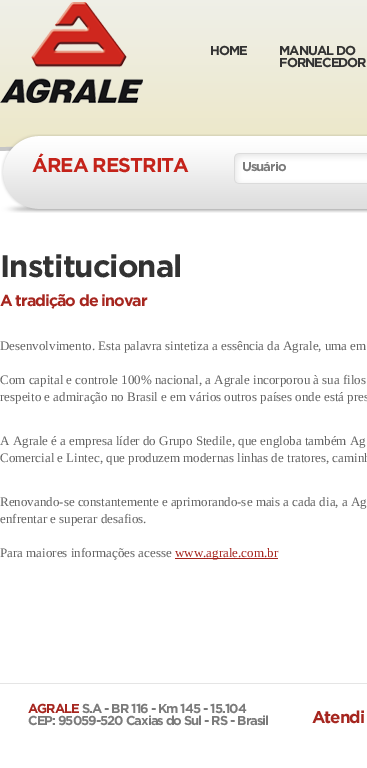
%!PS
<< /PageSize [367 768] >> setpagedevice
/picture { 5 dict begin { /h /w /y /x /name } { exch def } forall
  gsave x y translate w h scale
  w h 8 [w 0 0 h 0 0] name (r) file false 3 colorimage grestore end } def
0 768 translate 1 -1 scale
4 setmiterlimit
1 setgray
0 0 367 768 rectfill
(img1.rgb) 0 0 367 151 picture
(img2.rgb) 0 2 143 101 picture
/Gotham-Bold [13 0 0 -13 0 0] selectfont
0.2 setgray
210 55 moveto -1 0 (HOME) ashow
279 55 moveto -1 0 (MANUAL DO) ashow
279 67 moveto -1 0 (FORNECEDOR) ashow
(img3.rgb) 1 134 366 79 picture
/Gotham-Bold [20 0 0 -20 0 0] selectfont
0.769 0.137 0.102 setrgbcolor
32 172 moveto -1 0 (ÁREA RESTRITA) ashow
(img4.rgb) 234 153 133 31 picture
gsave
242 162 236 12 rectclip
/Gotham-Bold [13 0 0 -13 0 0] selectfont
0.482 setgray
242 171 moveto -1 0 (Usuário) ashow
grestore
/Gotham-Bold [31 0 0 -31 0 0] selectfont
0.2 setgray
0 277 moveto -1 0 (Institucional) ashow
/Gotham-Bold [16 0 0 -16 0 0] selectfont
0.651 0.149 0.122 setrgbcolor
0 306 moveto -1 0 (A tradição de inovar) ashow
/LiberationSerif-Regular [13 0 0 -13 0 0] selectfont
0.384 setgray
0 350 moveto (Desenvolvimento. Esta palavra sintetiza a essência da Agrale, uma em) show
0 384 moveto (Com capital e controle 100% nacional, a Agrale incorporou à sua filos) show
0 401 moveto (respeito e admiração no Brasil e em vários outros países onde está pres) show
0 445 moveto (A Agrale é a empresa líder do Grupo Stedile, que engloba também Ag) show
0 462 moveto (Comercial e Lintec, que produzem modernas linhas de tratores, caminh) show
0 506 moveto (Renovando-se constantemente e aprimorando-se mais a cada dia, a Ag) show
0 523 moveto (enfrentar e superar desafios.) show
0 557 moveto (Para maiores informações acesse) show
0.651 0.149 0.122 setrgbcolor
175 558 103 1 rectfill
175 557 moveto (www.agrale.com.br) show
0.898 setgray
0 683 367 1 rectfill
/Gotham-Bold [13 0 0 -13 0 0] selectfont
0.651 0.149 0.122 setrgbcolor
28 713 moveto -1 0 (AGRALE) ashow
0.482 setgray
82 713 moveto -1 0 (S.A - BR 116 - Km 145 - 15.104) ashow
28 725 moveto -1 0 (CEP: 95059-520 Caxias do Sul - RS - Brasil) ashow
/Gotham-Bold [17 0 0 -17 0 0] selectfont
0.651 0.149 0.122 setrgbcolor
312 723 moveto -1 0 (Atendi) ashow
showpage
